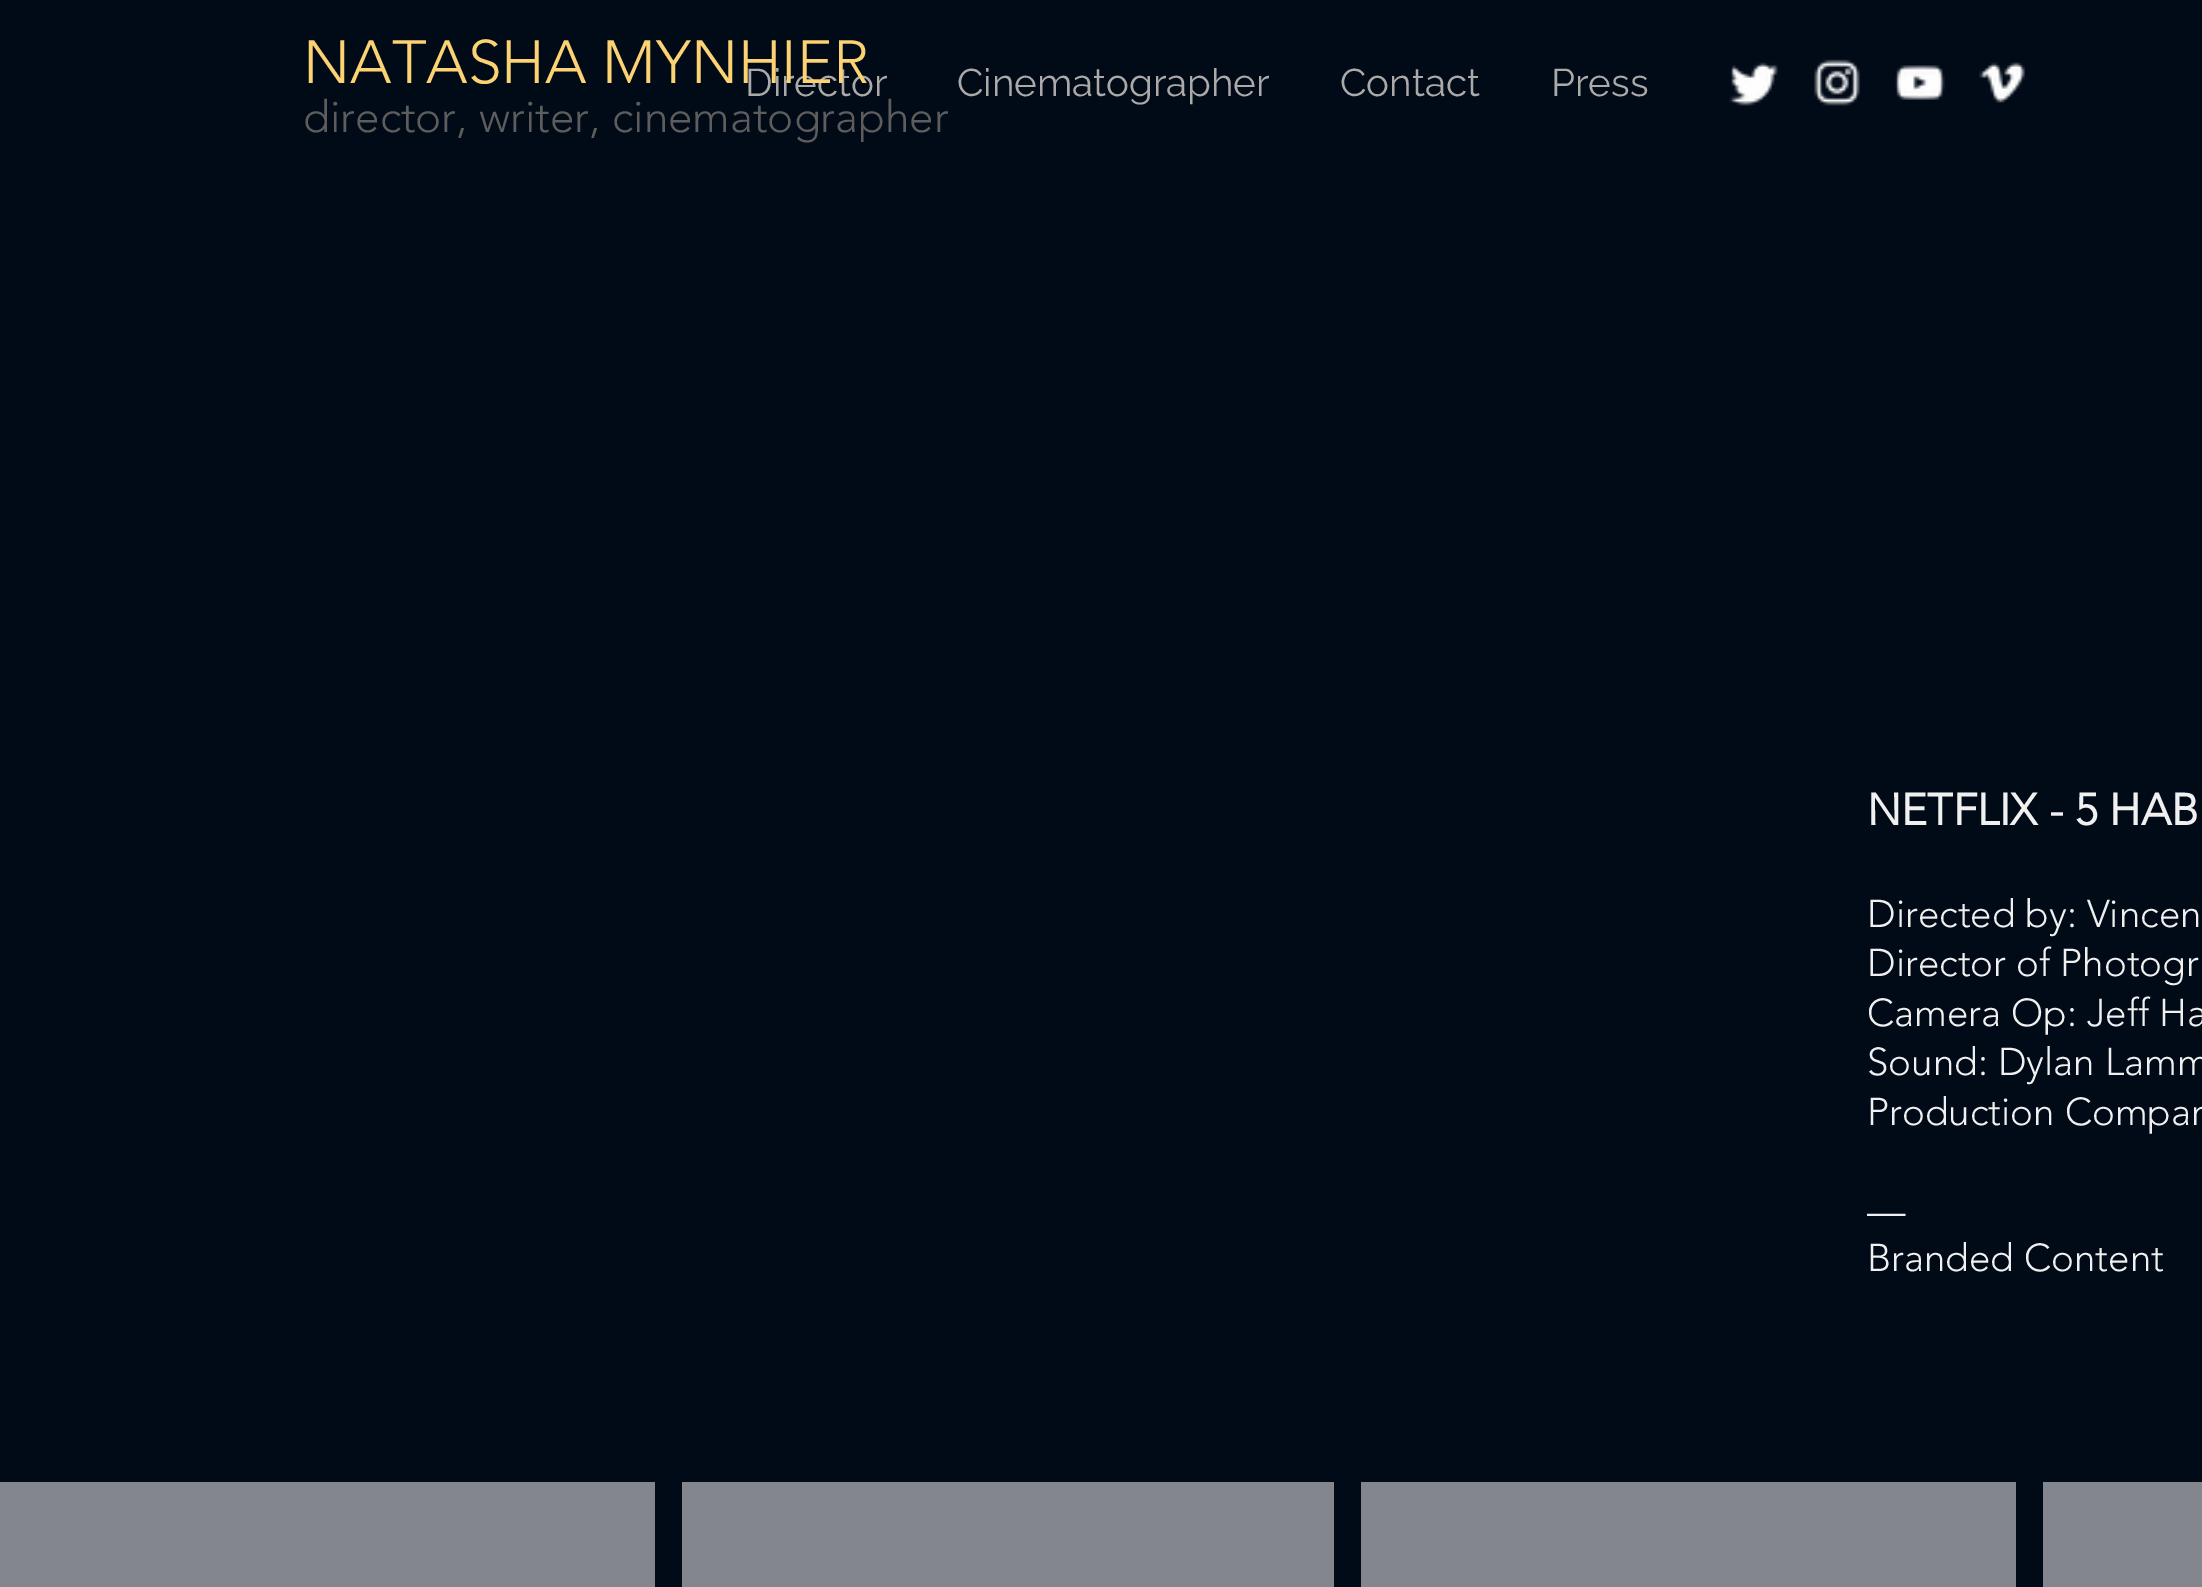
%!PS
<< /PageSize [2202 1587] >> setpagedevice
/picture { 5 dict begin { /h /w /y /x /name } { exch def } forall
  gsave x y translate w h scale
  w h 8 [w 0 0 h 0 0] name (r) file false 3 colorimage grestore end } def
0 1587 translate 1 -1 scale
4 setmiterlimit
0.004 0.039 0.09 setrgbcolor
0 0 2202 1587 rectfill
/Raleway-Regular [38.5 0 0 -38.5 0 0] selectfont
0.675 0.663 0.663 setrgbcolor
745 96 moveto (Director) show
/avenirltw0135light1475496-Light [60.5 0 0 -60.5 0 0] selectfont
0.988 0.824 0.447 setrgbcolor
303 83 moveto (NATASHA MYNHIER) show
/avenirltw0135light1475496-Light [44 0 0 -44 0 0] selectfont
0.369 0.365 0.365 setrgbcolor
303 132 moveto (director, writer, cinematographer) show
/Raleway-Regular [38.5 0 0 -38.5 0 0] selectfont
0.675 0.663 0.663 setrgbcolor
957 96 moveto (Cinematographer) show
1340 96 moveto (Contact) show
1551 96 moveto (Press) show
(img1.rgb) 1729 62 50 44 picture
(img2.rgb) 1814 59 46 47 picture
(img3.rgb) 1895 65 50 35 picture
(img4.rgb) 1979 62 46 41 picture
/avenirltw0135light1475496-Bold [44 0 0 -44 0 0] selectfont
0.941 setgray
1867 825 moveto (NETFLIX - 5 HAB) show
/avenirltw0135light1475496-Light [38.5 0 0 -38.5 0 0] selectfont
1867 927 moveto (Directed by: Vincen) show
1867 976 moveto (Director of Photogr) show
1867 1026 moveto (Camera Op: Jeff Ha) show
1867 1075 moveto (Sound: Dylan Lamm) show
1867 1125 moveto (Production Compan) show
1867 1224 moveto (—) show
1867 1271 moveto (Branded Content) show
0.514 0.529 0.553 setrgbcolor
0 1482 655 105 rectfill
682 1482 652 105 rectfill
1361 1482 655 105 rectfill
2043 1482 159 105 rectfill
showpage
